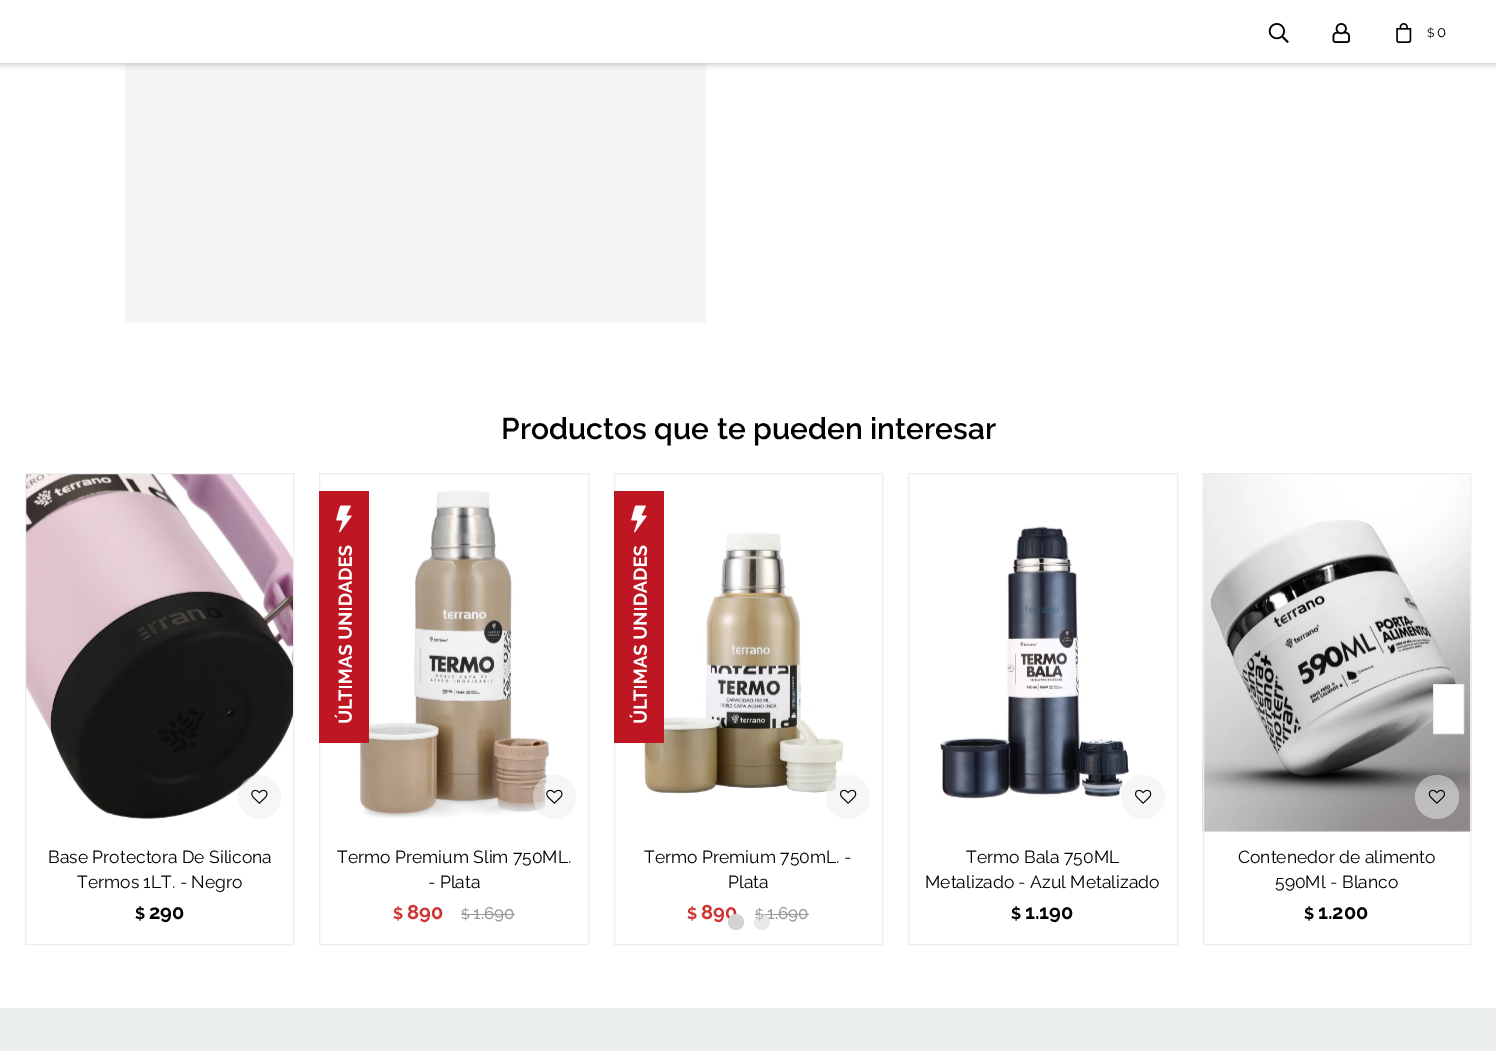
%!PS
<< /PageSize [1496 1051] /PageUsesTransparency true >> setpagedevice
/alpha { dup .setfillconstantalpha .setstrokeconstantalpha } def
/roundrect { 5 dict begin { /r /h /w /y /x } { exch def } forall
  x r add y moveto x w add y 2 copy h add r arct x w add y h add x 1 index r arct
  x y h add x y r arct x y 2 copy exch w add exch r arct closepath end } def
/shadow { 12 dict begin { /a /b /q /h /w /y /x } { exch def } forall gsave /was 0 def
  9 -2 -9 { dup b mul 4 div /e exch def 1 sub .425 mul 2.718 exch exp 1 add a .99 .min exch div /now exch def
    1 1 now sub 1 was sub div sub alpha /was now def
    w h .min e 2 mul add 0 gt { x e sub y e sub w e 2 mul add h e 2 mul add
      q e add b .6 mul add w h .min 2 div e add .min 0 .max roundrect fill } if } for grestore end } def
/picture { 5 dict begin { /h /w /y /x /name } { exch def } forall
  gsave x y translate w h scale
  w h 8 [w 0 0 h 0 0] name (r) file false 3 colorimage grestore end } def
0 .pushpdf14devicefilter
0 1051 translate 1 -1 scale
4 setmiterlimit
1 setgray
0 0 1496 1051 rectfill
(img4.rgb) 125 63 581 260 picture
0 setgray
-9 3 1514 62 0 3 0.2 shadow
1 setgray
0 0 1496 63 rectfill
(img1.rgb) 1268 23 21 20 picture
(img2.rgb) 1332 23 18 20 picture
(img3.rgb) 1396 23 16 20 picture
/Raleway-Regular [12 0 0 -12 0 0] selectfont
0 setgray
1427 37 moveto ($) show
/Raleway-Regular [15 0 0 -15 0 0] selectfont
1437 37 moveto (0) show
/Raleway-SemiBold [30 0 0 -30 0 0] selectfont
501 439 moveto (Productos que te pueden interesar) show
(img13.rgb) 1202 473 270 359 picture
0.929 setgray
1203.5 473.5 267 471 rectstroke
1 setgray
newpath 1433.5 684.5 moveto 1463.5 684.5 lineto 1463.5 733.5 lineto 1433.5 733.5 lineto closepath gsave fill grestore
0.929 setgray
stroke
(img5.rgb) 26 474 267 345 picture
25.5 473.5 268 471 rectstroke
0.5 alpha
238 775 43 44 21.5 roundrect fill
1 alpha
(img6.rgb) 251 789 17 15 picture
/Raleway-Regular [17.5 0 0 -17.5 0 0] selectfont
0 setgray
48 863 moveto (Base Protectora De Silicona) show
77 888 moveto (Termos 1LT. - Negro) show
/Raleway-Bold [16 0 0 -16 0 0] selectfont
135 919 moveto ($) show
/Raleway-Bold [20 0 0 -20 0 0] selectfont
149 919 moveto (290) show
(img8.rgb) 358 490 192 329 picture
0.6 setgray
461 914 54 1 rectfill
0.929 setgray
319.5 473.5 269 471 rectstroke
(img7.rgb) 319 491 50 252 picture
0.5 alpha
533 775 43 44 21.5 roundrect fill
1 alpha
(img9.rgb) 546 789 17 15 picture
/Raleway-Regular [17.5 0 0 -17.5 0 0] selectfont
0 setgray
337 863 moveto (Termo Premium Slim 750ML.) show
428 888 moveto (- Plata) show
/Raleway-Bold [16 0 0 -16 0 0] selectfont
0.824 0.196 0.196 setrgbcolor
393 919 moveto ($) show
/Raleway-Bold [20 0 0 -20 0 0] selectfont
407 919 moveto (890) show
/Raleway-Medium [14 0 0 -14 0 0] selectfont
0.6 setgray
461 919 moveto ($) show
/Raleway-Medium [17 0 0 -17 0 0] selectfont
473 919 moveto (1.690) show
(img10.rgb) 641 532 203 262 picture
755 914 54 1 rectfill
0.929 setgray
614.5 473.5 268 471 rectstroke
(img7.rgb) 614 491 50 252 picture
0.5 alpha
newpath 848 797 22 0 360 arc closepath fill
1 alpha
(img11.rgb) 840 789 17 15 picture
/Raleway-Regular [17.5 0 0 -17.5 0 0] selectfont
0 setgray
644 863 moveto (Termo Premium 750mL. -) show
728 888 moveto (Plata) show
/Raleway-Bold [16 0 0 -16 0 0] selectfont
0.824 0.196 0.196 setrgbcolor
687 919 moveto ($) show
/Raleway-Bold [20 0 0 -20 0 0] selectfont
701 919 moveto (890) show
/Raleway-Medium [14 0 0 -14 0 0] selectfont
0.6 setgray
755 919 moveto ($) show
/Raleway-Medium [17 0 0 -17 0 0] selectfont
767 919 moveto (1.690) show
(img12.rgb) 940 526 190 273 picture
0.929 setgray
908.5 473.5 269 471 rectstroke
0.5 alpha
newpath 1143 797 22 0 360 arc closepath fill
1 alpha
(img11.rgb) 1135 789 17 15 picture
/Raleway-Regular [17.5 0 0 -17.5 0 0] selectfont
0 setgray
966 863 moveto (Termo Bala 750ML) show
925 888 moveto (Metalizado - Azul Metalizado) show
/Raleway-Bold [16 0 0 -16 0 0] selectfont
1011 919 moveto ($) show
/Raleway-Bold [20 0 0 -20 0 0] selectfont
1025 919 moveto (1.190) show
0.5 alpha
0.929 setgray
newpath 1437 797 22 0 360 arc closepath fill
1 alpha
(img14.rgb) 1428 789 17 15 picture
/Raleway-Regular [17.5 0 0 -17.5 0 0] selectfont
0 setgray
1238 863 moveto (Contenedor de alimento) show
1275 888 moveto (590Ml - Blanco) show
/Raleway-Bold [16 0 0 -16 0 0] selectfont
1304 919 moveto ($) show
/Raleway-Bold [20 0 0 -20 0 0] selectfont
1318 919 moveto (1.200) show
0.827 setgray
newpath 736 922 8 0 360 arc closepath fill
0.5 alpha
newpath 762 922 8 0 360 arc closepath fill
1 alpha
0.922 0.937 0.941 setrgbcolor
0 1008 1496 43 rectfill
.poppdf14devicefilter showpage
